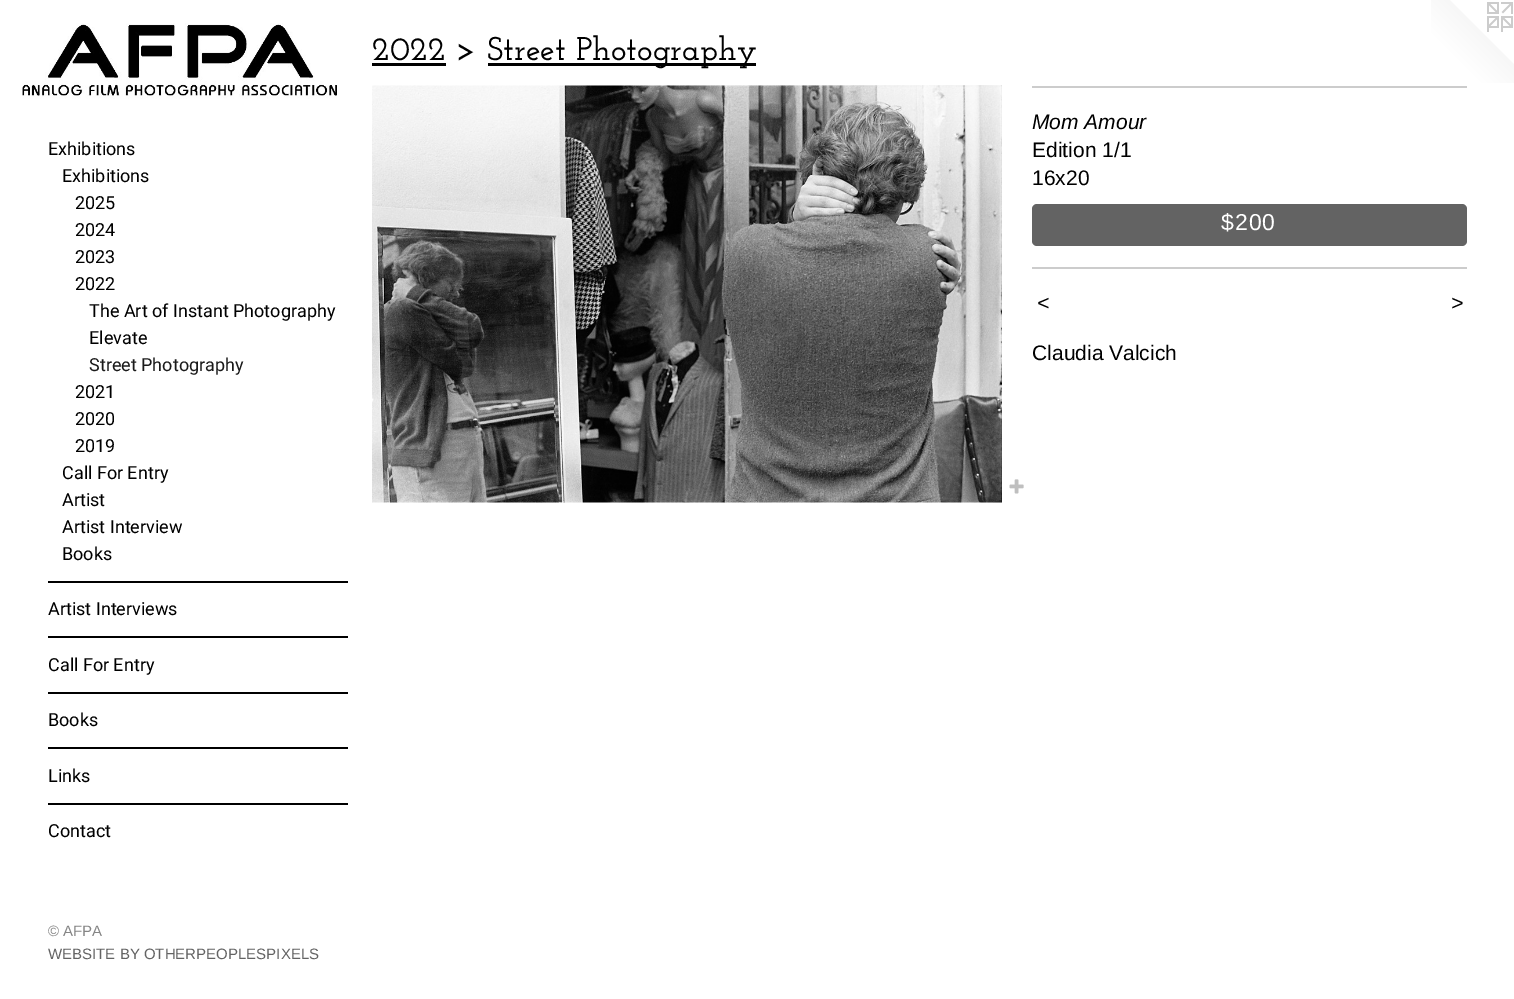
%!PS
<< /PageSize [1514 999] >> setpagedevice
/roundrect { 5 dict begin { /r /h /w /y /x } { exch def } forall
  x r add y moveto x w add y 2 copy h add r arct x w add y h add x 1 index r arct
  x y h add x y r arct x y 2 copy exch w add exch r arct closepath end } def
/picture { 5 dict begin { /h /w /y /x /name } { exch def } forall
  gsave x y translate w h scale
  w h 8 [w 0 0 h 0 0] name (r) file false 3 colorimage grestore end } def
0 999 translate 1 -1 scale
4 setmiterlimit
1 setgray
0 0 1514 999 rectfill
(img1.rgb) 22 23 315 76 picture
/Roboto-Regular [18 0 0 -18 0 0] selectfont
0 setgray
48 155 moveto (Exhibitions) show
62 182 moveto (Exhibitions) show
75 209 moveto (2025) show
75 236 moveto (2024) show
75 263 moveto (2023) show
75 290 moveto (2022) show
89 317 moveto (The Art of Instant Photography) show
89 344 moveto (Elevate) show
0.102 setgray
89 371 moveto (Street Photography) show
0 setgray
75 398 moveto (2021) show
75 425 moveto (2020) show
75 452 moveto (2019) show
62 479 moveto (Call For Entry) show
62 506 moveto (Artist) show
62 533 moveto (Artist Interview) show
62 560 moveto (Books) show
48 581 300 2 rectfill
48 615 moveto (Artist Interviews) show
48 636 300 2 rectfill
48 671 moveto (Call For Entry) show
48 692 300 2 rectfill
48 726 moveto (Books) show
48 747 300 2 rectfill
48 782 moveto (Links) show
48 803 300 2 rectfill
48 837 moveto (Contact) show
/LiberationSans-Regular [15 0 0 -15 0 0] selectfont
0.522 setgray
48 936 moveto (© AFPA) show
0.388 setgray
48 959 moveto (WEBSITE BY OTHERPEOPLESPIXELS) show
/JosefinSlab-Thin [33 0 0 -33 0 0] selectfont
0 setgray
372 60 moveto (2022 >) show
372 63 74 3 rectfill
488 63 268 3 rectfill
487 60 moveto (Street Photography) show
(img2.rgb) 372 85 630 418 picture
(img3.rgb) 1009 479 15 15 picture
0.8 setgray
1032 86 435 2 rectfill
/LiberationSans-Italic [21 0 0 -21 0 0] selectfont
0 setgray
1032 129 moveto (Mom Amour) show
/LiberationSans-Regular [21 0 0 -21 0 0] selectfont
1032 157 moveto (Edition 1/1) show
1032 185 moveto (16x20) show
0.388 setgray
1032 204 435 42 5 roundrect fill
/LiberationSans-Regular [23 0 0 -23 0 0] selectfont
1 setgray
1221 230 moveto 1 0 ($200) ashow
0.8 setgray
1032 267 435 2 rectfill
/LiberationSans-Italic [21 0 0 -21 0 0] selectfont
0 setgray
1037 310 moveto 2 0 (<) ashow
1451 310 moveto 2 0 (>) ashow
/LiberationSans-Regular [21 0 0 -21 0 0] selectfont
1032 360 moveto (Claudia Valcich) show
(img4.rgb) 1431 0 83 83 picture
showpage
